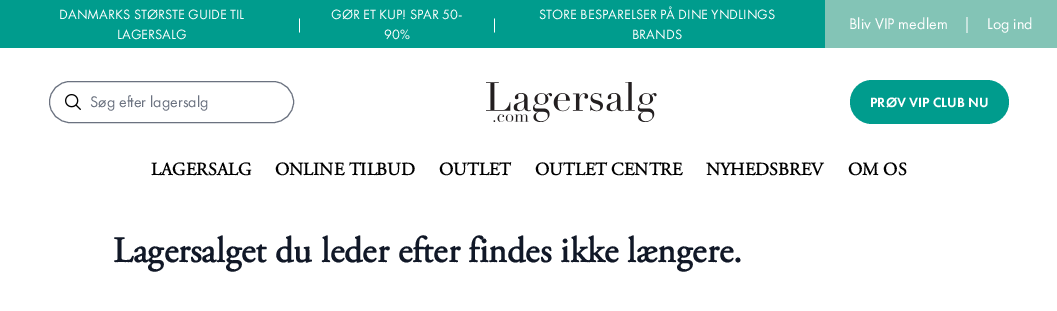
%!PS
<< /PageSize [1057 311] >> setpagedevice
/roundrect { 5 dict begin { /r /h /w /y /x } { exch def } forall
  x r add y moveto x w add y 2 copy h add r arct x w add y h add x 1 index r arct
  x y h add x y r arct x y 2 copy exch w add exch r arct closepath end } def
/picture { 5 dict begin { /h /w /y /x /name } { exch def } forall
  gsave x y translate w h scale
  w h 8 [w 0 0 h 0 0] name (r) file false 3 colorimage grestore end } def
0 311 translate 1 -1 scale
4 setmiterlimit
1 setgray
0 0 1057 311 rectfill
0 0.612 0.553 setrgbcolor
0 0 825 48 rectfill
/FuturaPT-Regular [14 0 0 -14 0 0] selectfont
1 setgray
59 19 moveto (DANMARKS STØRSTE GUIDE TIL) show
331 19 moveto (GØR ET KUP! SPAR 50-) show
539 19 moveto (STORE BESPARELSER PÅ DINE YNDLINGS) show
296 29 moveto (|) show
491 29 moveto (|) show
117 39 moveto (LAGERSALG) show
384 39 moveto (90%) show
632 39 moveto (BRANDS) show
0.514 0.769 0.714 setrgbcolor
825 0 232 48 rectfill
/FuturaPT-Regular [16 0 0 -16 0 0] selectfont
1 setgray
849 29 moveto (Bliv VIP medlem) show
963 29 moveto (|) show
987 29 moveto (Log ind) show
0.42 0.447 0.502 setrgbcolor
49.5 81.5 244 41 20.5 roundrect stroke
(img1.rgb) 65 94 16 16 picture
90 107 moveto (Søg efter lagersalg) show
(img2.rgb) 486 82 171 40 picture
0 0.612 0.553 setrgbcolor
850 80 159 44 22 roundrect fill
/FuturaPT-Medium [14 0 0 -14 0 0] selectfont
1 setgray
870 107 moveto (PRØV VIP CLUB NU) show
/AdobeGaramond-Bold [18 0 0 -18 0 0] selectfont
0 setgray
151 175 moveto (LAGERSALG) show
275 175 moveto (ONLINE TILBUD) show
439 175 moveto (OUTLET) show
535 175 moveto (OUTLET CENTRE) show
706 175 moveto (NYHEDSBREV) show
848 175 moveto (OM OS) show
/AdobeGaramond-Bold [36 0 0 -36 0 0] selectfont
0.067 0.094 0.153 setrgbcolor
113 262 moveto (Lagersalget du leder efter findes ikke længere.) show
showpage
